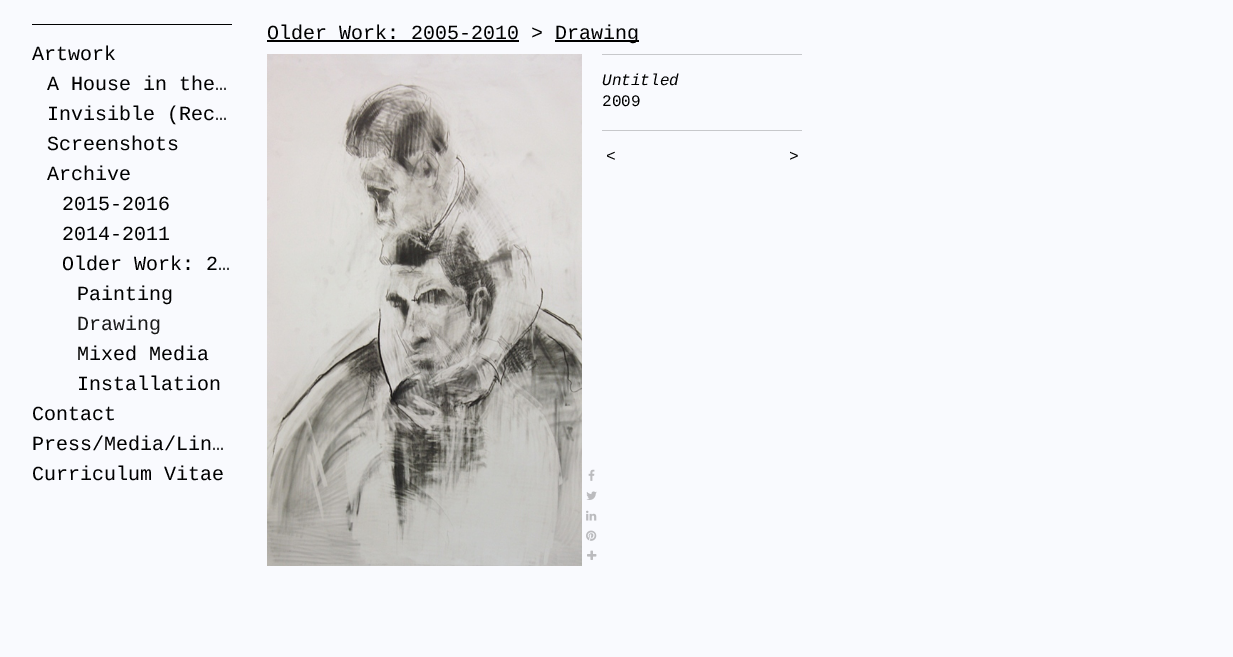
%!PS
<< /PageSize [1233 657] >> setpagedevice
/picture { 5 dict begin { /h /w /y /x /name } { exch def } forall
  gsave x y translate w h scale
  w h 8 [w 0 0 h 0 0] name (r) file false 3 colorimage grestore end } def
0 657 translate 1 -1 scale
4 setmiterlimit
0.976 0.98 0.996 setrgbcolor
0 0 1233 657 rectfill
0 setgray
32 24 200 1 rectfill
/LiberationMono-Regular [20 0 0 -20 0 0] selectfont
32 60 moveto (Artwork) show
47 90 moveto (A House in the…) show
47 120 moveto (Invisible \(Rec…) show
47 150 moveto (Screenshots) show
47 180 moveto (Archive) show
62 210 moveto (2015-2016) show
62 240 moveto (2014-2011) show
62 270 moveto (Older Work: 2…) show
77 300 moveto (Painting) show
0.102 setgray
77 330 moveto (Drawing) show
0 setgray
77 360 moveto (Mixed Media) show
77 390 moveto (Installation) show
32 420 moveto (Contact) show
32 450 moveto (Press/Media/Lin…) show
32 480 moveto (Curriculum Vitae) show
267 39 moveto (Older Work: 2005-2010 >) show
267 40 252 2 rectfill
555 40 84 2 rectfill
555 39 moveto (Drawing) show
(img1.rgb) 267 54 315 512 picture
(img2.rgb) 588 469 7 12 picture
(img3.rgb) 586 491 11 9 picture
(img4.rgb) 586 510 11 11 picture
(img5.rgb) 586 530 11 11 picture
(img6.rgb) 587 550 10 10 picture
0.78 0.784 0.796 setrgbcolor
602 54 200 1 rectfill
/LiberationMono-Italic [16 0 0 -16 0 0] selectfont
0 setgray
602 85 moveto (Untitled) show
/LiberationMono-Regular [16 0 0 -16 0 0] selectfont
602 106 moveto (2009) show
0.78 0.784 0.796 setrgbcolor
602 130 200 1 rectfill
/LiberationMono-Italic [16 0 0 -16 0 0] selectfont
0 setgray
606 161 moveto 1 0 (<) ashow
789 161 moveto 1 0 (>) ashow
showpage
